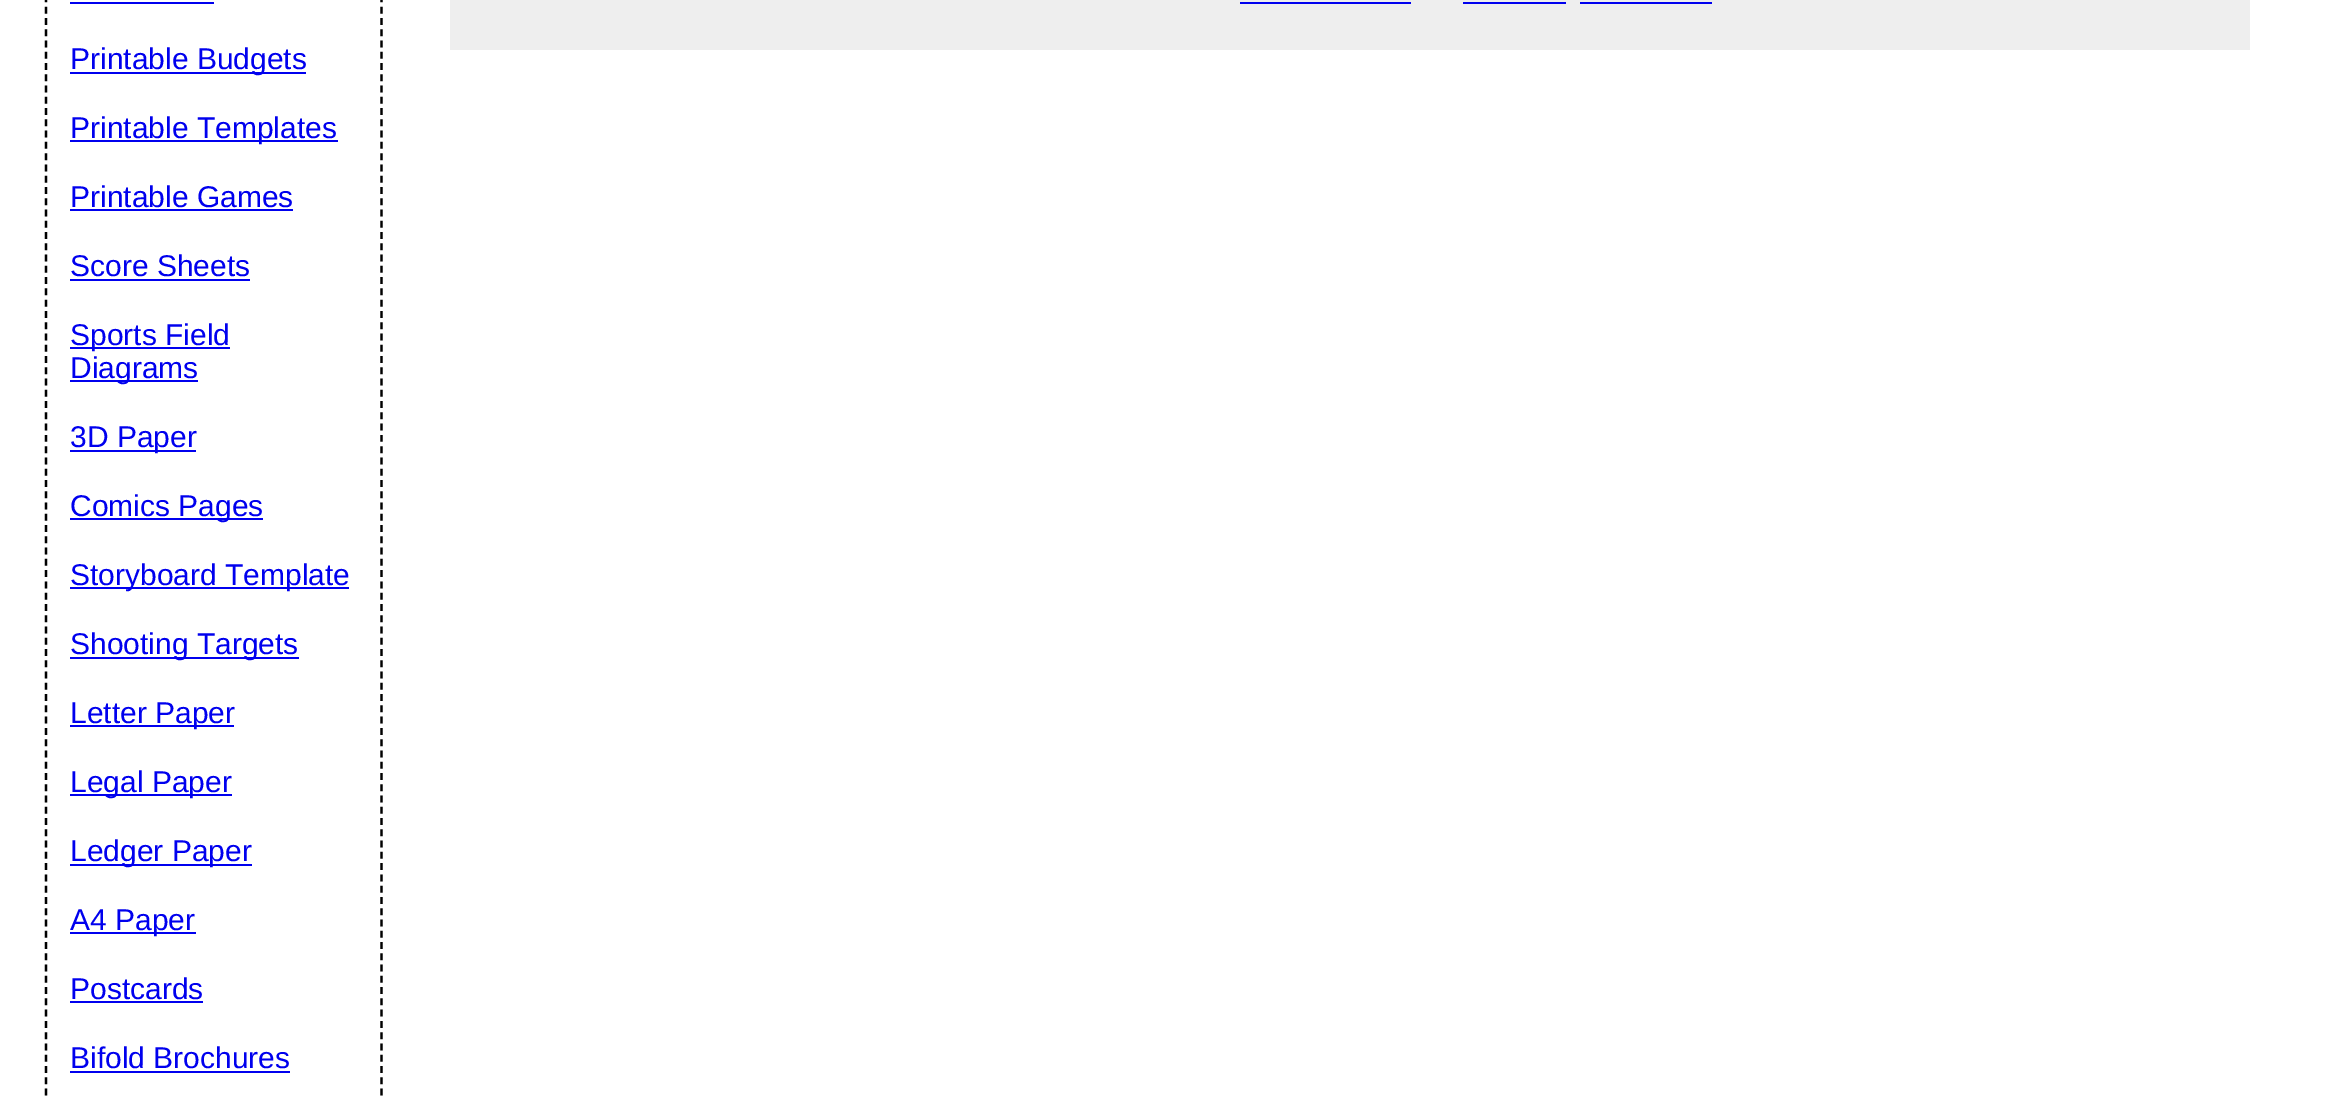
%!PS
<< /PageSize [2342 1096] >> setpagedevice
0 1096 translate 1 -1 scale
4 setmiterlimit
1 setgray
0 0 2342 1096 rectfill
0.933 setgray
450 0 1800 50 rectfill
0 0 0.933 setrgbcolor
1240 2 171 2 rectfill
1463 2 103 2 rectfill
1580 2 132 2 rectfill
0 setgray
2.2 setlinewidth
[6.75 4.52] 0 setdash
newpath 381.5 -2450 moveto 381.5 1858.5 lineto stroke
newpath 46 -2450 moveto 46 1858.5 lineto stroke
0 0 0.933 setrgbcolor
70 2 144 2 rectfill
70 72 236 2 rectfill
/LiberationSans-Regular [30 0 0 -30 0 0] selectfont
70 69 moveto (Printable Budgets) show
70 140 268 2 rectfill
70 138 moveto (Printable Templates) show
70 207 moveto (Printable Games) show
70 209 223 2 rectfill
70 276 moveto (Score Sheets) show
70 279 180 2 rectfill
70 347 160 2 rectfill
70 345 moveto (Sports Field) show
70 380 128 2 rectfill
70 378 moveto (Diagrams) show
70 450 126 2 rectfill
70 447 moveto (3D Paper) show
70 518 193 2 rectfill
70 516 moveto (Comics Pages) show
70 587 279 2 rectfill
70 585 moveto (Storyboard Template) show
70 657 229 2 rectfill
70 654 moveto (Shooting Targets) show
70 725 164 2 rectfill
70 723 moveto (Letter Paper) show
70 794 162 2 rectfill
70 792 moveto (Legal Paper) show
70 864 182 2 rectfill
70 861 moveto (Ledger Paper) show
70 932 126 2 rectfill
70 930 moveto (A4 Paper) show
70 999 moveto (Postcards) show
70 1001 133 2 rectfill
70 1068 moveto (Bifold Brochures) show
70 1071 220 2 rectfill
showpage
